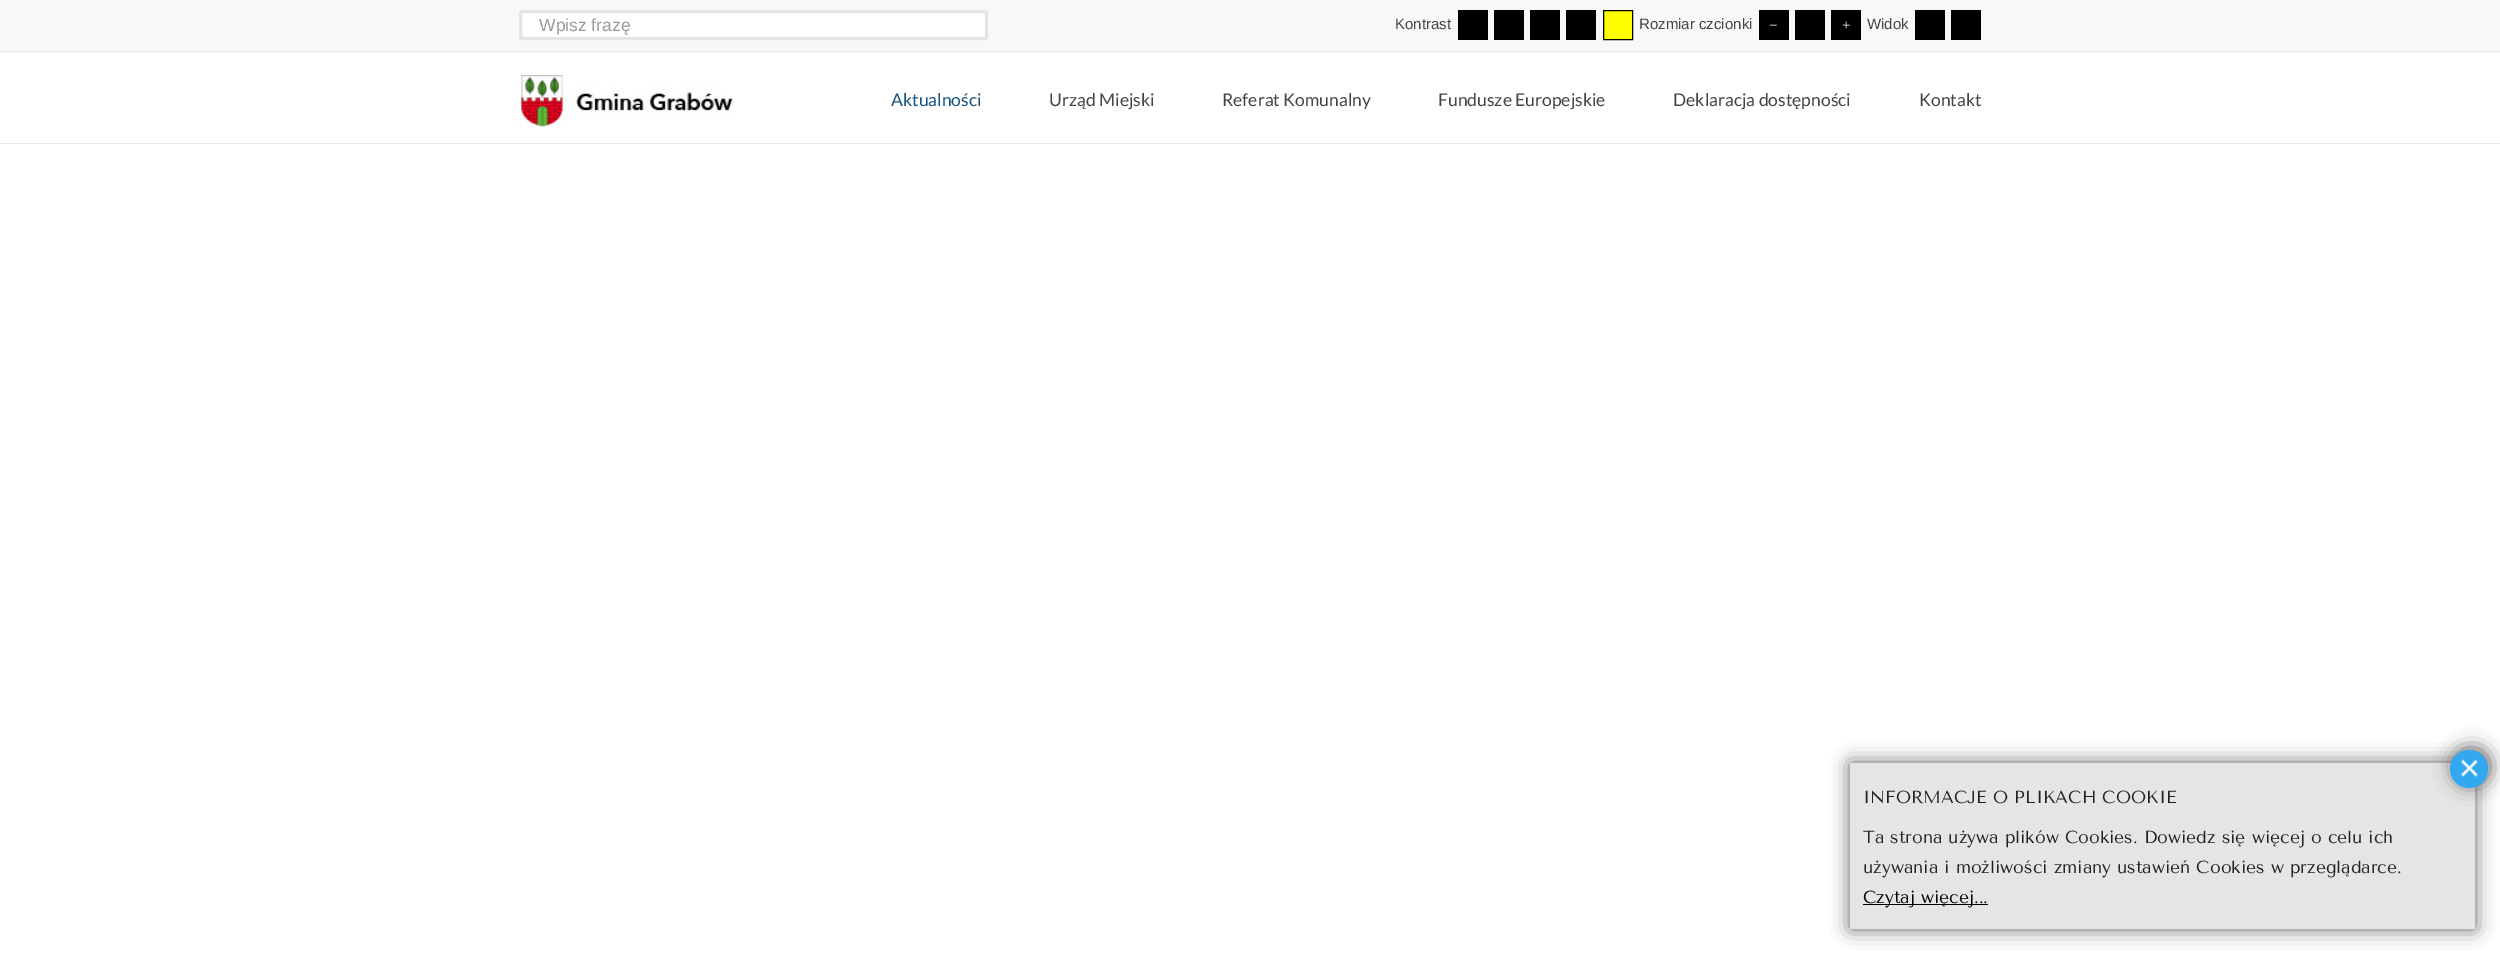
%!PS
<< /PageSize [2500 977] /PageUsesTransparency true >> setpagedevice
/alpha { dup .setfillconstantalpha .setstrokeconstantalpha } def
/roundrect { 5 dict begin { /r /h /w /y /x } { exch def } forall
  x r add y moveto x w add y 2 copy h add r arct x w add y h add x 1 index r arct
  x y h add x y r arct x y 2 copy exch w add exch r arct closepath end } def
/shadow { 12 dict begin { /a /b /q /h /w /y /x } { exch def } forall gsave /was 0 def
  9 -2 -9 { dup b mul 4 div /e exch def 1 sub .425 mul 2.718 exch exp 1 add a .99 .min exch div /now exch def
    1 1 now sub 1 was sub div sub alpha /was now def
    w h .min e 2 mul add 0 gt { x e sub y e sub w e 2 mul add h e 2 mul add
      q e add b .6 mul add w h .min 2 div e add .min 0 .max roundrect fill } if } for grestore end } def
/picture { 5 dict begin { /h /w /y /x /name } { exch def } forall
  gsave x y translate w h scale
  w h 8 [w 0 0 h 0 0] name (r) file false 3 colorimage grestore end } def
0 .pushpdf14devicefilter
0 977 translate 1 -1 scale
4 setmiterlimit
1 setgray
0 0 2500 977 rectfill
0.922 0.918 0.918 setrgbcolor
0 143 2500 1 rectfill
0.973 setgray
0 0 2500 53 rectfill
0.922 0.918 0.918 setrgbcolor
0 51 2500 1 rectfill
1 setgray
520.5 11.5 466 27 1 roundrect gsave fill grestore
0.894 setgray
3 setlinewidth
stroke
/LiberationSans-Regular [17.5 0 0 -17.5 0 0] selectfont
0.6 setgray
539 31 moveto (Wpisz frazę) show
/LiberationSans-Regular [15 0 0 -15 0 0] selectfont
0.267 setgray
1395 29 moveto (Kontrast) show
0 setgray
1458 10 30 30 rectfill
1494 10 30 30 rectfill
1530 10 30 30 rectfill
1566 10 30 30 rectfill
1 1 0 setrgbcolor
newpath 1603.5 10.5 moveto 1632.5 10.5 lineto 1632.5 39.5 lineto 1603.5 39.5 lineto closepath gsave fill grestore
0 setgray
1 setlinewidth
stroke
0.267 setgray
1639 29 moveto (Rozmiar czcionki) show
0 setgray
1759 10 30 30 rectfill
/LiberationSerif-Regular [15 0 0 -15 0 0] selectfont
1 setgray
1769 30 moveto (−) show
0 setgray
1795 10 30 30 rectfill
1831 10 30 30 rectfill
1 setgray
1842 30 moveto (+) show
/LiberationSans-Regular [15 0 0 -15 0 0] selectfont
0.267 setgray
1867 29 moveto (Widok) show
0 setgray
1915 10 30 30 rectfill
1951 10 30 30 rectfill
(img1.rgb) 519 75 214 52 picture
/Lato-Regular [17.5 0 0 -17.5 0 0] selectfont
0.086 0.329 0.49 setrgbcolor
891 106 moveto (Aktualności) show
0.267 setgray
1049 106 moveto (Urząd Miejski) show
1222 106 moveto (Referat Komunalny) show
1438 106 moveto (Fundusze Europejskie) show
1673 106 moveto (Deklaracja dostępności) show
1919 106 moveto (Kontakt) show
gsave
newpath 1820 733 moveto 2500 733 lineto 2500 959 lineto 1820 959 lineto closepath 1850 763 moveto 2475 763 lineto 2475 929 lineto 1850 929 lineto closepath eoclip newpath
0.196 setgray
1850 763 625 166 0 9.5 0.75 shadow
grestore
0.9 alpha
0.886 setgray
1850 763 625 166 rectfill
1 alpha
0.196 setgray
2453 748 37 37 18.5 9.5 0.75 shadow
0.192 0.659 0.941 setrgbcolor
newpath 2469 769 19 0 360 arc closepath fill
(img2.rgb) 2461 759 17 18 picture
/TenorSans-Regular [17.5 0 0 -17.5 0 0] selectfont
0.129 setgray
1863 803 moveto (INFORMACJE O PLIKACH COOKIE) show
1863 843 moveto (Ta strona używa plików Cookies. Dowiedz się więcej o celu ich) show
1863 873 moveto (używania i możliwości zmiany ustawień Cookies w przeglądarce.) show
0 setgray
1863 904 125 1 rectfill
1863 903 moveto (Czytaj więcej...) show
.poppdf14devicefilter showpage
